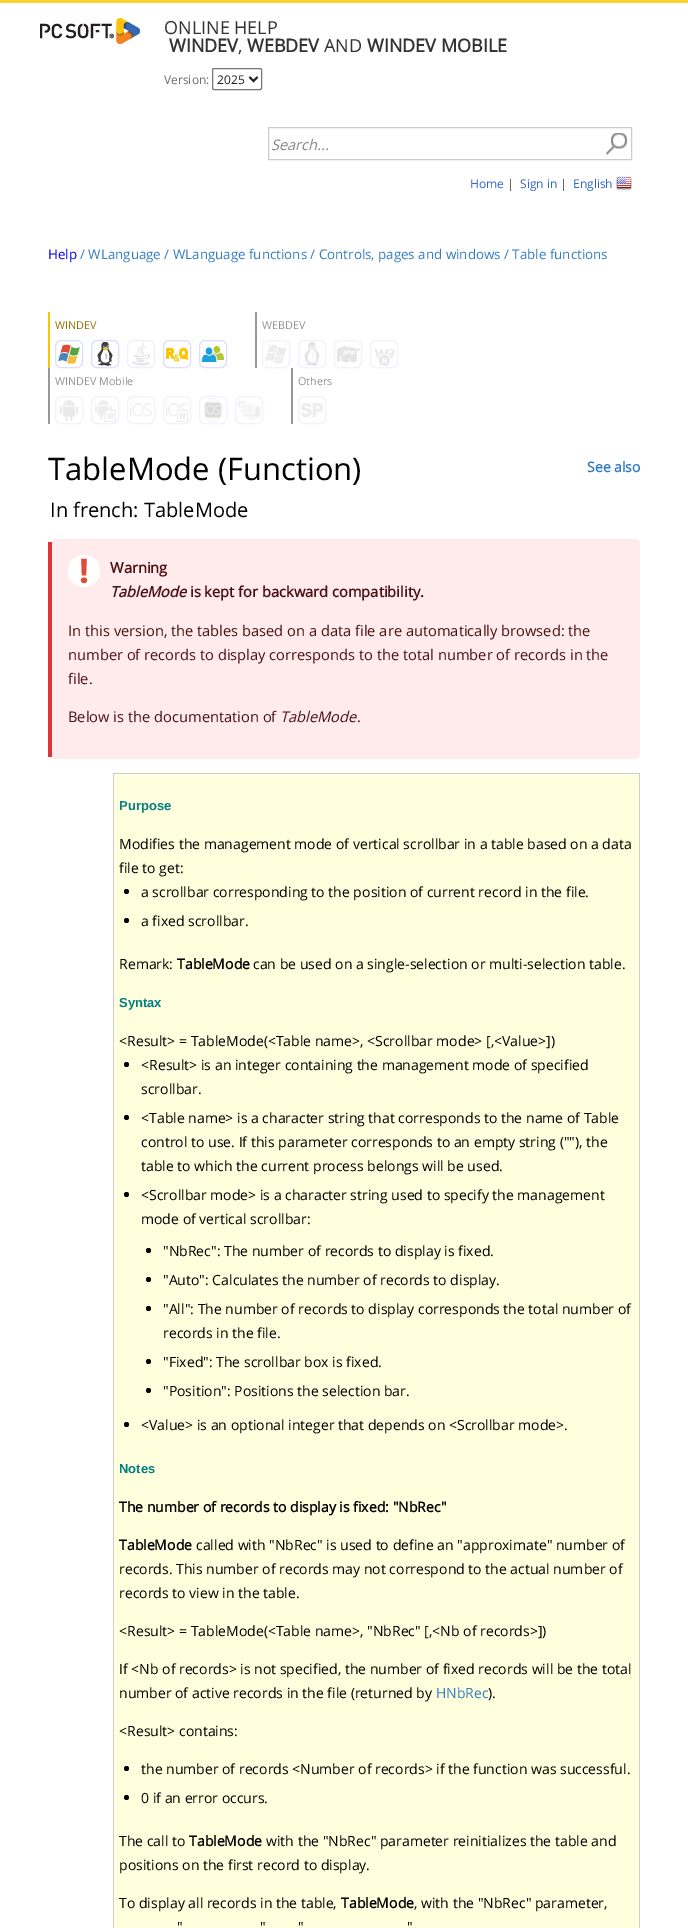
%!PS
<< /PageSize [688 1928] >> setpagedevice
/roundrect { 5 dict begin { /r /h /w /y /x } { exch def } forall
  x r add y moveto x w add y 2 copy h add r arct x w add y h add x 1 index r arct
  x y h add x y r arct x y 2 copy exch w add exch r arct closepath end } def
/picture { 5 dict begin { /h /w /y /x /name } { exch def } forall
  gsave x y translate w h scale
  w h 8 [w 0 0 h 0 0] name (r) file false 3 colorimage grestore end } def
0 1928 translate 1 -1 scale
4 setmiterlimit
0.996 0.824 0.184 setrgbcolor
0 0 688 1928 rectfill
1 setgray
0 3 688 1925 rectfill
(img1.rgb) 40 18 100 26 picture
/OpenSans-Regular [18 0 0 -18 0 0] selectfont
0.2 setgray
164 34 moveto (ONLINE HELP) show
/OpenSans-Bold [18 0 0 -18 0 0] selectfont
169 52 moveto (WINDEV) show
/OpenSans-Regular [18 0 0 -18 0 0] selectfont
238 52 moveto (,) show
/OpenSans-Bold [18 0 0 -18 0 0] selectfont
247 52 moveto (WEBDEV) show
/OpenSans-Regular [18 0 0 -18 0 0] selectfont
324 52 moveto (AND) show
/OpenSans-Bold [18 0 0 -18 0 0] selectfont
367 52 moveto (WINDEV MOBILE) show
/OpenSans-Regular [12 0 0 -12 0 0] selectfont
0.435 setgray
164 84 moveto (Version:) show
0.463 setgray
212.5 68.5 49 21 1.5 roundrect stroke
0.133 setgray
2 setlinewidth
newpath 249.5 77 moveto 253.5 81 lineto 257.5 77 lineto stroke
217 84 moveto (2025) show
0.8 setgray
1 setlinewidth
268.5 127.5 363 32 rectstroke
/OpenSans-Italic [14.65 0 0 -14.65 0 0] selectfont
0.533 setgray
271 150 moveto (Search...) show
/OpenSans-Regular [12 0 0 -12 0 0] selectfont
0.2 0.4 0.8 setrgbcolor
470 188 moveto (Home) show
0.2 setgray
507 188 moveto (|) show
0.2 0.4 0.8 setrgbcolor
520 188 moveto (Sign in) show
0.2 setgray
560 188 moveto (|) show
0.2 0.4 0.8 setrgbcolor
573 188 moveto (English) show
(img2.rgb) 616 176 16 15 picture
(img3.rgb) 606 133 21 23 picture
/OpenSans-Regular [13.35 0 0 -13.35 0 0] selectfont
0 0 0.933 setrgbcolor
48 259 moveto (Help) show
0.2 0.49 0.761 setrgbcolor
80 259 moveto (/ WLanguage / WLanguage functions / Controls, pages and windows / Table functions) show
0.992 0.769 0 setrgbcolor
48 312 2 56 rectfill
/OpenSans-Regular [10.75 0 0 -10.75 0 0] selectfont
0.604 0.435 0 setrgbcolor
55 329 moveto (WINDEV) show
0.867 0.867 1 setrgbcolor
55.5 340.5 27 27 5.5 roundrect stroke
91.5 340.5 27 27 5.5 roundrect stroke
0.933 0.933 1 setrgbcolor
127.5 340.5 27 27 5.5 roundrect stroke
0.867 0.867 1 setrgbcolor
163.5 340.5 27 27 5.5 roundrect stroke
199.5 340.5 27 27 5.5 roundrect stroke
(img4.rgb) 58 344 22 20 picture
(img5.rgb) 97 342 16 24 picture
(img6.rgb) 132 342 18 24 picture
(img7.rgb) 166 347 23 15 picture
(img8.rgb) 202 346 22 16 picture
0.596 setgray
255 312 2 56 rectfill
0.573 setgray
262 329 moveto (WEBDEV) show
0.945 0.945 1 setrgbcolor
262.5 340.5 27 27 5.5 roundrect stroke
298.5 340.5 27 27 5.5 roundrect stroke
334.5 340.5 27 27 5.5 roundrect stroke
370.5 340.5 27 27 5.5 roundrect stroke
(img9.rgb) 265 344 22 20 picture
(img10.rgb) 304 342 16 24 picture
(img11.rgb) 337 346 23 17 picture
(img12.rgb) 374 349 21 17 picture
0.596 setgray
48 368 2 56 rectfill
0.573 setgray
55 385 moveto (WINDEV Mobile) show
0.945 0.945 1 setrgbcolor
55.5 396.5 27 27 5.5 roundrect stroke
91.5 396.5 27 27 5.5 roundrect stroke
127.5 396.5 27 27 5.5 roundrect stroke
163.5 396.5 27 27 5.5 roundrect stroke
199.5 396.5 27 27 5.5 roundrect stroke
235.5 396.5 27 27 5.5 roundrect stroke
(img13.rgb) 59 400 20 21 picture
(img14.rgb) 95 400 21 22 picture
(img15.rgb) 130 403 22 14 picture
(img16.rgb) 166 403 22 19 picture
(img17.rgb) 204 398 19 24 picture
(img18.rgb) 237 401 24 19 picture
0.596 setgray
291 368 2 56 rectfill
0.573 setgray
298 385 moveto (Others) show
0.945 0.945 1 setrgbcolor
298.5 396.5 27 27 5.5 roundrect stroke
(img19.rgb) 301 403 22 14 picture
/OpenSans-Regular [31 0 0 -31 0 0] selectfont
0 setgray
48 480 moveto (TableMode \(Function\)) show
/OpenSans-Bold [14 0 0 -14 0 0] selectfont
0.2 0.49 0.761 setrgbcolor
587 472 moveto (See also) show
/OpenSans-Regular [20 0 0 -20 0 0] selectfont
0 setgray
50 517 moveto (In french: TableMode) show
1 0.922 0.925 setrgbcolor
newpath 53 539 moveto 635 539 lineto 638 539 640 541 640 544 curveto 640 754 lineto 640 757 638 759 635 759 curveto 53 759 lineto 52 759 52 757 52 754 curveto 52 544 lineto 52 541 52 539 53 539 curveto closepath fill
0.882 0.196 0.22 setrgbcolor
48 542 4 215 rectfill
(img20.rgb) 68 555 32 32 picture
/OpenSans-Bold [14.65 0 0 -14.65 0 0] selectfont
0.294 0.067 0.075 setrgbcolor
110 573 moveto (Warning) show
/OpenSans-BoldItalic [14.65 0 0 -14.65 0 0] selectfont
110 597 moveto (TableMode) show
/OpenSans-Bold [14.65 0 0 -14.65 0 0] selectfont
190 597 moveto (is kept for backward compatibility.) show
/OpenSans-Regular [14.65 0 0 -14.65 0 0] selectfont
68 636 moveto (In this version, the tables based on a data file are automatically browsed: the) show
68 660 moveto (number of records to display corresponds to the total number of records in the) show
68 684 moveto (file.) show
68 722 moveto (Below is the documentation of) show
/OpenSans-Italic [14.65 0 0 -14.65 0 0] selectfont
280 722 moveto (TableMode) show
/OpenSans-Regular [14.65 0 0 -14.65 0 0] selectfont
357 722 moveto (.) show
1 1 0.867 setrgbcolor
114 774 525 1154 rectfill
0.8 setgray
113 773 527 1 rectfill
639 773 1 1155 rectfill
113 773 1 1155 rectfill
/LiberationSans-Bold [13 0 0 -13 0 0] selectfont
0 0.502 0.502 setrgbcolor
119 810 moveto (Purpose) show
/OpenSans-Regular [14 0 0 -14 0 0] selectfont
0 setgray
119 849 moveto (Modifies the management mode of vertical scrollbar in a table based on a data) show
119 873 moveto (file to get:) show
newpath 126.5 891.5 2.5 0 360 arc closepath fill
141 897 moveto (a scrollbar corresponding to the position of current record in the file.) show
newpath 126.5 920.5 2.5 0 360 arc closepath fill
141 926 moveto (a fixed scrollbar.) show
119 969 moveto (Remark:) show
/OpenSans-Bold [14 0 0 -14 0 0] selectfont
177 969 moveto (TableMode) show
/OpenSans-Regular [14 0 0 -14 0 0] selectfont
253 969 moveto (can be used on a single-selection or multi-selection table.) show
/LiberationSans-Bold [13 0 0 -13 0 0] selectfont
0 0.502 0.502 setrgbcolor
119 1007 moveto (Syntax) show
/OpenSans-Regular [14 0 0 -14 0 0] selectfont
0 setgray
119 1046 moveto (<Result> = TableMode\(<Table name>, <Scrollbar mode> [,<Value>]\)) show
newpath 126.5 1064.5 2.5 0 360 arc closepath fill
141 1070 moveto (<Result> is an integer containing the management mode of specified) show
141 1094 moveto (scrollbar.) show
newpath 126.5 1117.5 2.5 0 360 arc closepath fill
141 1123 moveto (<Table name> is a character string that corresponds to the name of Table) show
141 1147 moveto (control to use. If this parameter corresponds to an empty string \(""\), the) show
141 1171 moveto (table to which the current process belongs will be used.) show
newpath 126.5 1194.5 2.5 0 360 arc closepath fill
141 1200 moveto (<Scrollbar mode> is a character string used to specify the management) show
141 1224 moveto (mode of vertical scrollbar:) show
newpath 148.5 1250.5 2.5 0 360 arc closepath fill
163 1256 moveto ("NbRec": The number of records to display is fixed.) show
newpath 148.5 1279.5 2.5 0 360 arc closepath fill
163 1285 moveto ("Auto": Calculates the number of records to display.) show
newpath 148.5 1308.5 2.5 0 360 arc closepath fill
163 1314 moveto ("All": The number of records to display corresponds the total number of) show
163 1338 moveto (records in the file.) show
newpath 148.5 1361.5 2.5 0 360 arc closepath fill
163 1367 moveto ("Fixed": The scrollbar box is fixed.) show
newpath 148.5 1390.5 2.5 0 360 arc closepath fill
163 1396 moveto ("Position": Positions the selection bar.) show
newpath 126.5 1424.5 2.5 0 360 arc closepath fill
141 1430 moveto (<Value> is an optional integer that depends on <Scrollbar mode>.) show
/LiberationSans-Bold [13 0 0 -13 0 0] selectfont
0 0.502 0.502 setrgbcolor
119 1473 moveto (Notes) show
/OpenSans-Bold [14 0 0 -14 0 0] selectfont
0 setgray
119 1512 moveto (The number of records to display is fixed: "NbRec") show
119 1550 moveto (TableMode) show
/OpenSans-Regular [14 0 0 -14 0 0] selectfont
196 1550 moveto (called with "NbRec" is used to define an "approximate" number of) show
119 1574 moveto (records. This number of records may not correspond to the actual number of) show
119 1598 moveto (records to view in the table.) show
119 1636 moveto (<Result> = TableMode\(<Table name>, "NbRec" [,<Nb of records>]\)) show
119 1674 moveto (If <Nb of records> is not specified, the number of fixed records will be the total) show
119 1698 moveto (number of active records in the file \(returned by) show
0.2 0.49 0.761 setrgbcolor
436 1698 moveto (HNbRec) show
0 setgray
488 1698 moveto (\).) show
119 1736 moveto (<Result> contains:) show
newpath 126.5 1768.5 2.5 0 360 arc closepath fill
141 1774 moveto (the number of records <Number of records> if the function was successful.) show
newpath 126.5 1797.5 2.5 0 360 arc closepath fill
141 1803 moveto (0 if an error occurs.) show
119 1846 moveto (The call to) show
/OpenSans-Bold [14 0 0 -14 0 0] selectfont
189 1846 moveto (TableMode) show
/OpenSans-Regular [14 0 0 -14 0 0] selectfont
266 1846 moveto (with the "NbRec" parameter reinitializes the table and) show
119 1870 moveto (positions on the first record to display.) show
119 1908 moveto (To display all records in the table,) show
/OpenSans-Bold [14 0 0 -14 0 0] selectfont
341 1908 moveto (TableMode) show
/OpenSans-Regular [14 0 0 -14 0 0] selectfont
414 1908 moveto (, with the "NbRec" parameter,) show
177 1932 moveto (") show
260 1932 moveto (") show
298 1932 moveto (") show
407 1932 moveto (") show
showpage
